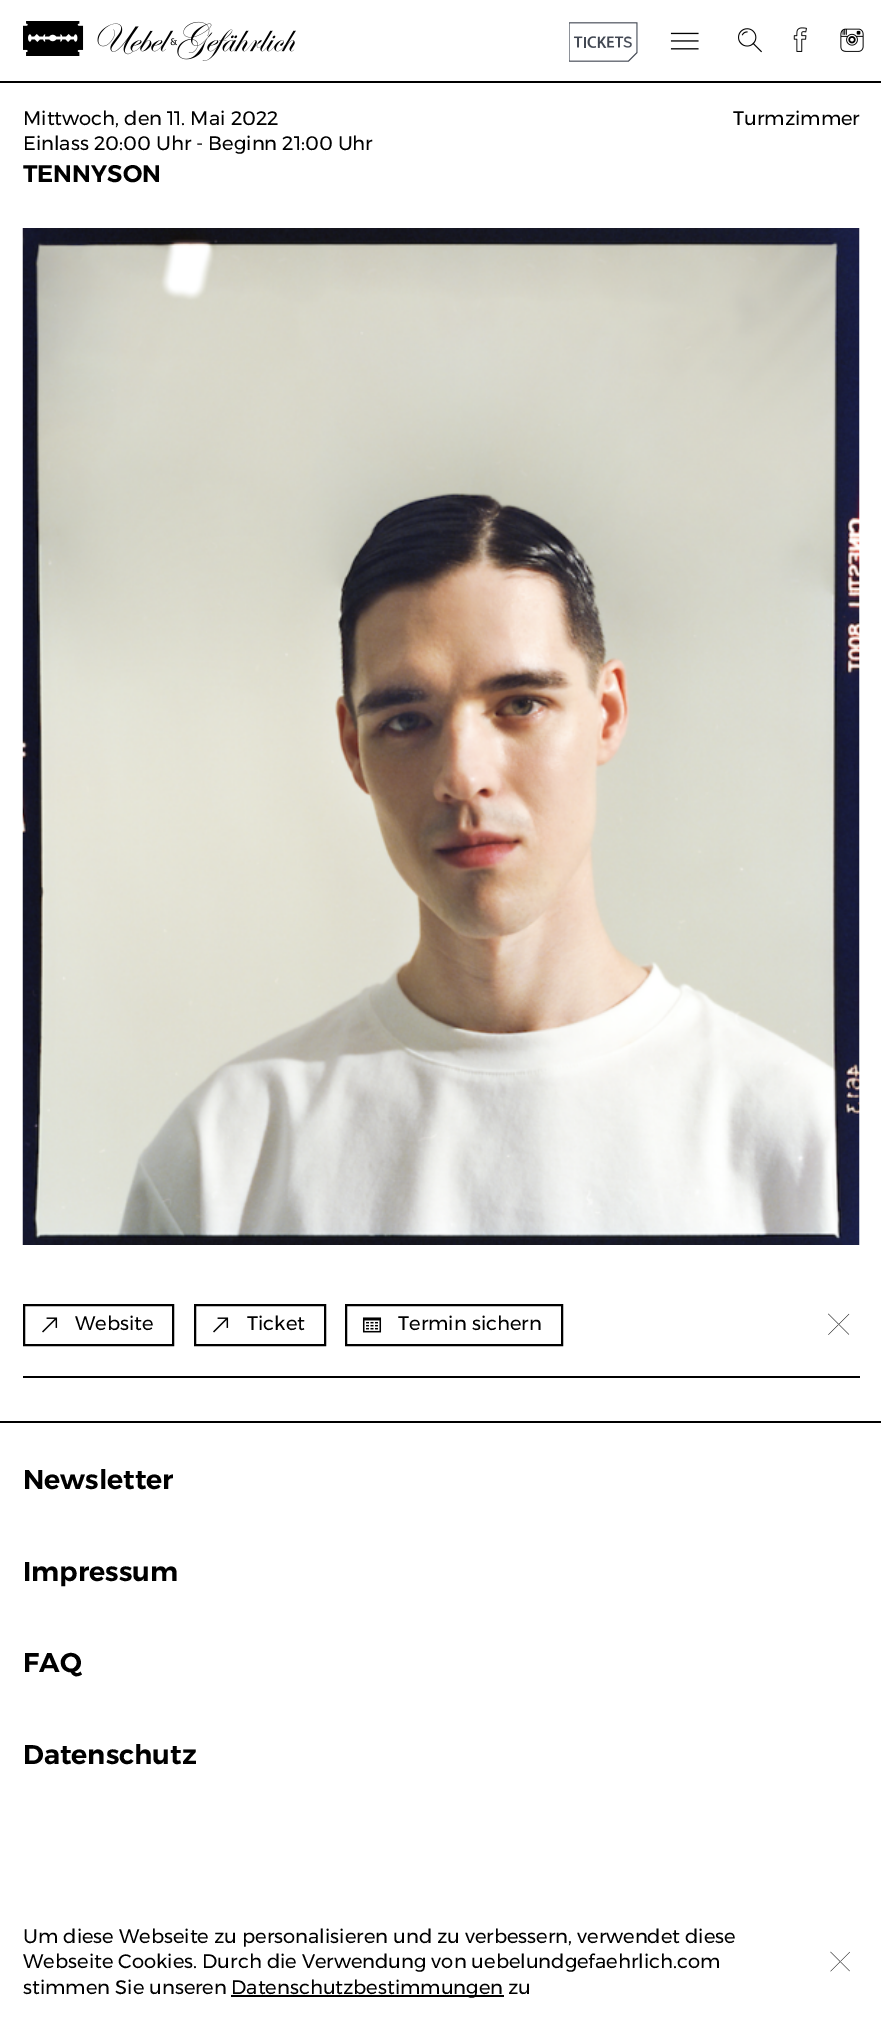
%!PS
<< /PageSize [881 2032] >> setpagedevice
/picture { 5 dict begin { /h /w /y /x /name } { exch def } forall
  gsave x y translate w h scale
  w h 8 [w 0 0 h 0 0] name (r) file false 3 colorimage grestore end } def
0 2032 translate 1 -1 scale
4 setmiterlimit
1 setgray
0 0 881 2032 rectfill
(img1.rgb) 23 21 61 35 picture
(img2.rgb) 97 21 199 40 picture
(img3.rgb) 569 22 69 40 picture
(img4.rgb) 670 32 29 18 picture
(img5.rgb) 738 28 24 25 picture
(img6.rgb) 793 27 14 25 picture
(img7.rgb) 840 28 24 24 picture
0 setgray
0 81 881 2 rectfill
/Montserrat-Regular [19.5 0 0 -19.5 0 0] selectfont
23 125 moveto (Mittwoch, den 11. Mai 2022) show
23 150 moveto (Einlass 20:00 Uhr - Beginn 21:00 Uhr) show
gsave
23 83 837 1314 rectclip
/Montserrat-SemiBold [24 0 0 -24 0 0] selectfont
23 182 moveto (TENNYSON) show
grestore
733 125 moveto (Turmzimmer) show
(img8.rgb) 22 228 838 1017 picture
2 setlinewidth
24 1305 149 40 rectstroke
(img9.rgb) 42 1317 16 16 picture
75 1330 moveto (Website) show
195 1305 130 40 rectstroke
(img9.rgb) 213 1317 16 16 picture
247 1330 moveto (Ticket) show
346 1305 216 40 rectstroke
(img10.rgb) 362 1317 20 16 picture
398 1330 moveto (Termin sichern) show
(img11.rgb) 828 1313 22 22 picture
23 1376 837 2 rectfill
0 1421 881 2 rectfill
/Montserrat-SemiBold [27 0 0 -27 0 0] selectfont
23 1489 moveto (Newsletter) show
23 1581 moveto (Impressum) show
23 1672 moveto (FAQ) show
23 1764 moveto (Datenschutz) show
/Montserrat-Regular [19.5 0 0 -19.5 0 0] selectfont
23 1943 moveto (Um diese Webseite zu personalisieren und zu verbessern, verwendet diese) show
23 1968 moveto (Webseite Cookies. Durch die Verwendung von uebelundgefaehrlich.com) show
23 1994 moveto (stimmen Sie unseren) show
231 1995 273 2 rectfill
231 1994 moveto (Datenschutzbestimmungen zu) show
(img12.rgb) 830 1951 20 21 picture
showpage
